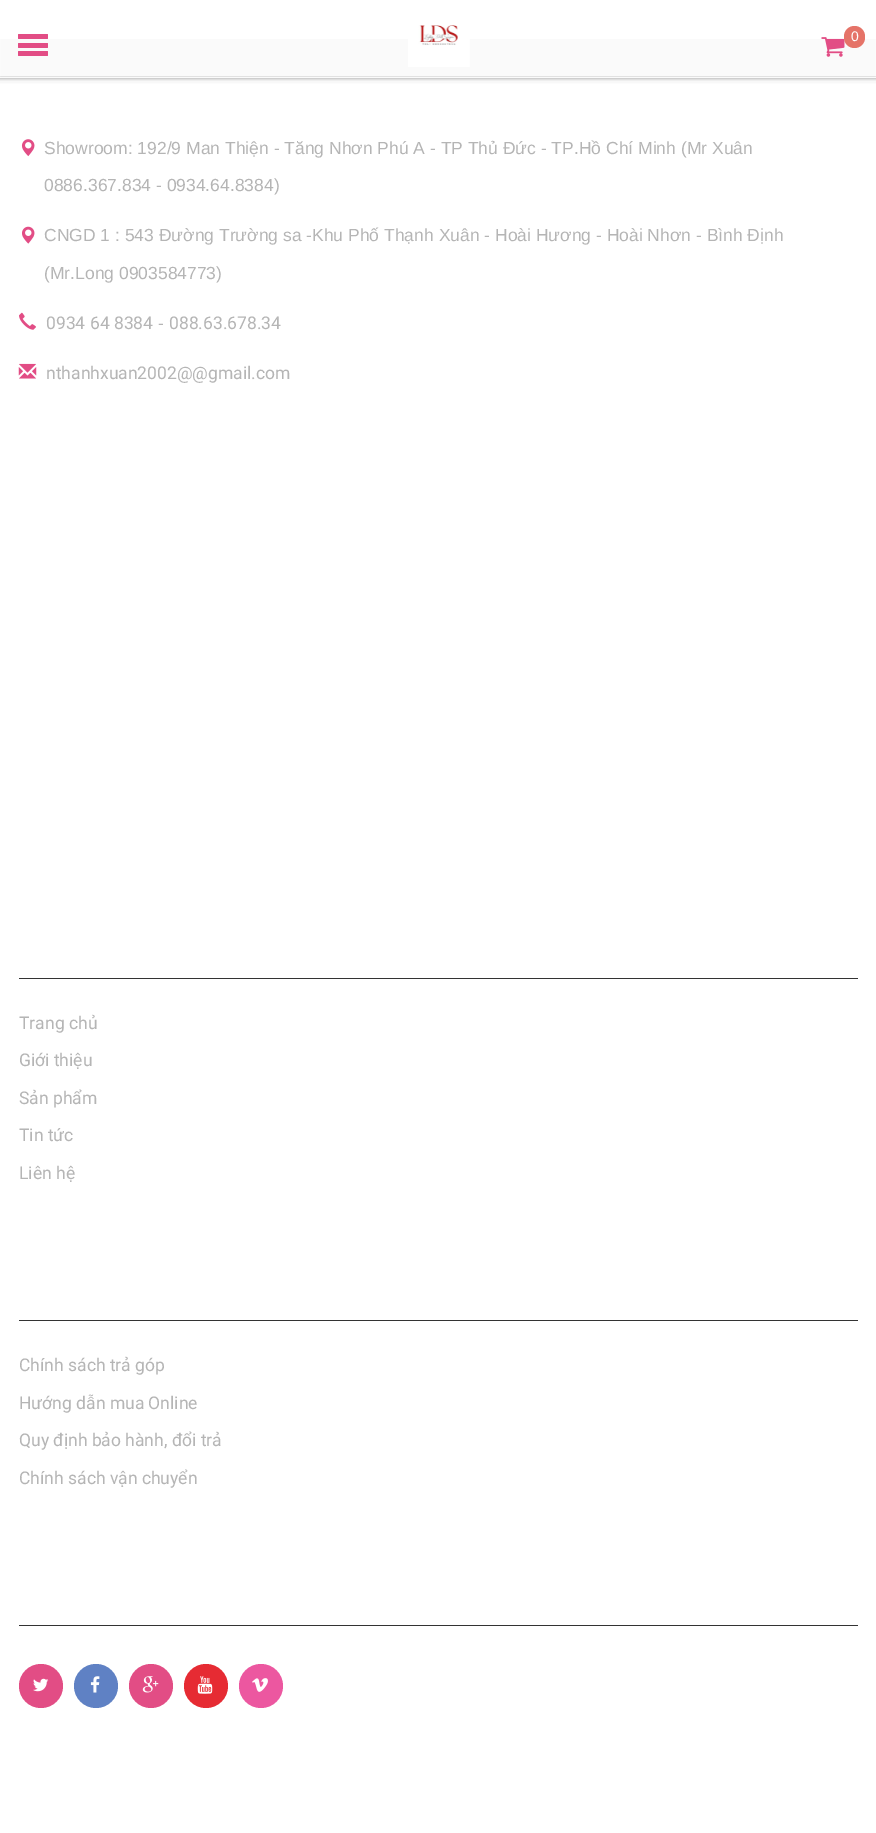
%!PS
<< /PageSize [876 1833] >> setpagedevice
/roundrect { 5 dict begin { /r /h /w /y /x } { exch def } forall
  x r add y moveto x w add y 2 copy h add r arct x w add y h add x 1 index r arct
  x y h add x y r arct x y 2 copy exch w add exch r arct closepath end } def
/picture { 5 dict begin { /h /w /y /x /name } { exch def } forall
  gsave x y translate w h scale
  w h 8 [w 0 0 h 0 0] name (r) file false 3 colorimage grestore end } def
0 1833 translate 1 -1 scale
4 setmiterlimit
1 setgray
0 0 876 1833 rectfill
0.808 setgray
0 78 876 1 rectfill
0.98 setgray
1 39 874 39 rectfill
0.984 setgray
0 39 1 39 rectfill
875 39 1 39 rectfill
0.882 setgray
0 76 876 1 rectfill
0.894 setgray
0 76 1 1 rectfill
875 76 1 1 rectfill
0.886 0.302 0.522 setrgbcolor
18 34 30 5 1 roundrect fill
18 43 30 5 1 roundrect fill
18 51 30 5 1 roundrect fill
(img1.rgb) 408 25 62 42 picture
(img2.rgb) 821 37 24 20 picture
0.898 0.451 0.408 setrgbcolor
844 26 21 22 10.5 roundrect fill
/LiberationSans-Regular [14 0 0 -14 0 0] selectfont
1 setgray
851 41 moveto (0) show
0.988 setgray
0 83 876 1 rectfill
0.973 setgray
0 81 876 2 rectfill
0.933 setgray
0 80 876 1 rectfill
0.875 setgray
0 79 876 1 rectfill
(img3.rgb) 21 139 14 18 picture
/LiberationSans-Regular [17.5 0 0 -17.5 0 0] selectfont
0.71 setgray
44 154 moveto (Showroom: 192/9 Man Thiện - Tăng Nhơn Phú A - TP Thủ Đức - TP.Hồ Chí Minh \(Mr Xuân) show
44 191 moveto (0886.367.834 - 0934.64.8384\)) show
(img4.rgb) 22 226 13 18 picture
44 241 moveto (CNGD 1 : 543 Đường Trường sa -Khu Phố Thạnh Xuân - Hoài Hương - Hoài Nhơn - Bình Định) show
44 279 moveto (\(Mr.Long 0903584773\)) show
(img5.rgb) 19 312 17 18 picture
/Roboto-Regular [17.5 0 0 -17.5 0 0] selectfont
46 329 moveto (0934 64 8384) show
/LiberationSans-Regular [17.5 0 0 -17.5 0 0] selectfont
158 329 moveto (-) show
/Roboto-Regular [17.5 0 0 -17.5 0 0] selectfont
169 329 moveto (088.63.678.34) show
(img6.rgb) 18 363 19 16 picture
46 379 moveto (nthanhxuan2002@@gmail.com) show
0.2 setgray
19 978 839 1 rectfill
0.71 setgray
19 1029 moveto (Trang chủ) show
19 1066 moveto (Giới thiệu) show
19 1104 moveto (Sản phẩm) show
19 1141 moveto (Tin tức) show
19 1179 moveto (Liên hệ) show
0.2 setgray
19 1320 839 1 rectfill
0.71 setgray
19 1371 moveto (Chính sách trả góp) show
19 1409 moveto (Hướng dẫn mua Online) show
19 1446 moveto (Quy định bảo hành, đổi trả) show
19 1484 moveto (Chính sách vận chuyển) show
0.2 setgray
19 1625 839 1 rectfill
0.886 0.302 0.522 setrgbcolor
newpath 41 1686 22 0 360 arc closepath fill
(img7.rgb) 33 1678 16 14 picture
0.373 0.506 0.769 setrgbcolor
newpath 96 1686 22 0 360 arc closepath fill
(img8.rgb) 90 1676 10 17 picture
0.886 0.302 0.522 setrgbcolor
newpath 151 1686 22 0 360 arc closepath fill
(img9.rgb) 142 1676 17 17 picture
0.902 0.169 0.2 setrgbcolor
newpath 206 1686 22 0 360 arc closepath fill
(img10.rgb) 197 1676 16 18 picture
0.925 0.341 0.627 setrgbcolor
newpath 261 1686 22 0 360 arc closepath fill
(img11.rgb) 252 1678 16 14 picture
showpage
